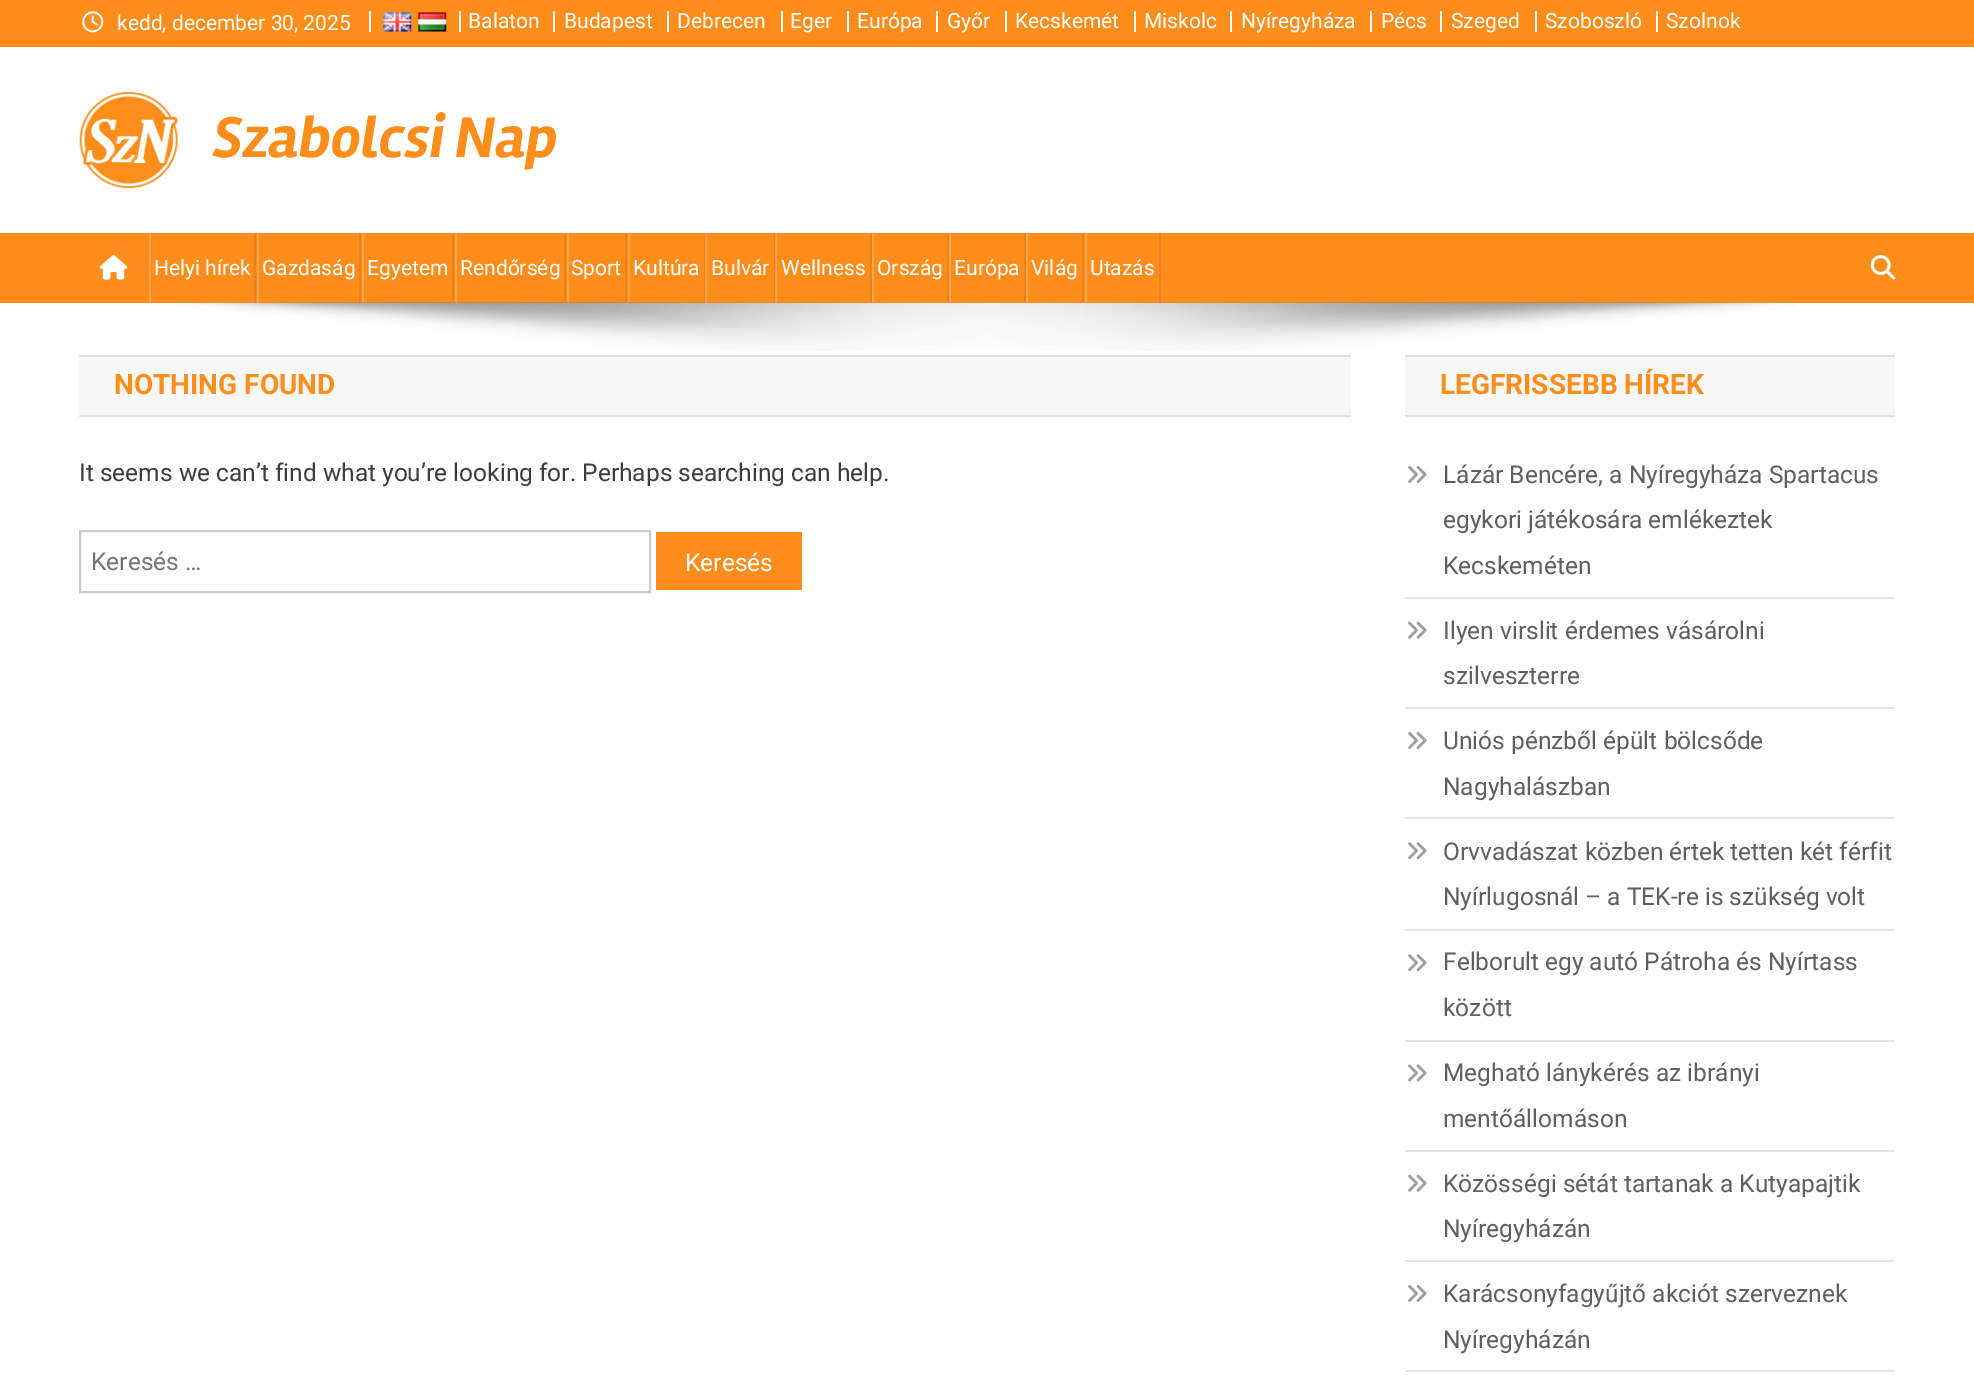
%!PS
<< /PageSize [1974 1375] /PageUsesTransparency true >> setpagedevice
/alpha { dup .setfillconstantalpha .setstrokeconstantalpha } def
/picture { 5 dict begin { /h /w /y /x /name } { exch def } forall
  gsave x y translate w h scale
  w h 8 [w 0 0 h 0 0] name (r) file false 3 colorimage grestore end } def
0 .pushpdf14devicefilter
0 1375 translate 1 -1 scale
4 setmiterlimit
1 setgray
0 0 1974 1375 rectfill
1 0.553 0.106 setrgbcolor
0 0 1974 47 rectfill
(img1.rgb) 82 11 22 22 picture
/Roboto-Regular [21 0 0 -21 0 0] selectfont
1 setgray
117 30 moveto (kedd, december 30, 2025) show
369 11 2 21 rectfill
(img2.rgb) 383 12 29 20 picture
(img3.rgb) 418 12 29 20 picture
459 11 2 21 rectfill
468 28 moveto (Balaton) show
553 11 2 21 rectfill
564 28 moveto (Budapest) show
667 11 2 21 rectfill
677 28 moveto (Debrecen) show
781 11 2 21 rectfill
790 28 moveto (Eger) show
847 11 2 21 rectfill
857 28 moveto (Európa) show
936 11 2 21 rectfill
947 28 moveto (Győr) show
1005 11 2 21 rectfill
1015 28 moveto (Kecskemét) show
1134 11 2 21 rectfill
1144 28 moveto (Miskolc) show
1230 11 2 21 rectfill
1241 28 moveto (Nyíregyháza) show
1370 11 2 21 rectfill
1381 28 moveto (Pécs) show
1440 11 2 21 rectfill
1451 28 moveto (Szeged) show
1535 11 2 21 rectfill
1545 28 moveto (Szoboszló) show
1656 11 2 21 rectfill
1666 28 moveto (Szolnok) show
(img4.rgb) 79 92 99 97 picture
/Rambla-BoldItalic [59.25 0 0 -59.25 0 0] selectfont
1 0.553 0.106 setrgbcolor
213 157 moveto (Szabolcsi Nap) show
0 233 1974 70 rectfill
1 0.643 0.286 setrgbcolor
1026 233 2 70 rectfill
0.922 0.51 0.098 setrgbcolor
1082 233 2 70 rectfill
1 0.643 0.286 setrgbcolor
949 233 2 70 rectfill
0.922 0.51 0.098 setrgbcolor
1024 233 2 70 rectfill
947 233 2 70 rectfill
(img5.rgb) 99 255 29 25 picture
(img7.rgb) 177 302 1618 49 picture
0.08 alpha
0 setgray
254 233 2 70 rectfill
1 alpha
1 0.643 0.286 setrgbcolor
149 233 2 70 rectfill
/Roboto-Regular [21 0 0 -21 0 0] selectfont
1 setgray
154 275 moveto (Helyi hírek) show
0.08 alpha
0 setgray
359 233 2 70 rectfill
0.2 alpha
1 setgray
257 233 2 70 rectfill
1 alpha
262 275 moveto (Gazdaság) show
0.08 alpha
0 setgray
452 233 2 70 rectfill
0.2 alpha
1 setgray
362 233 2 70 rectfill
1 alpha
367 275 moveto (Egyetem) show
0.08 alpha
0 setgray
564 233 2 70 rectfill
0.2 alpha
1 setgray
455 233 2 70 rectfill
1 alpha
460 275 moveto (Rendőrség) show
0.08 alpha
0 setgray
625 233 2 70 rectfill
0.2 alpha
1 setgray
567 233 2 70 rectfill
1 alpha
571 275 moveto (Sport) show
0.08 alpha
0 setgray
704 233 2 70 rectfill
0.2 alpha
1 setgray
628 233 2 70 rectfill
1 alpha
633 275 moveto (Kultúra) show
0.08 alpha
0 setgray
774 233 2 70 rectfill
0.2 alpha
1 setgray
705 233 2 70 rectfill
1 alpha
711 275 moveto (Bulvár) show
0.08 alpha
0 setgray
870 233 2 70 rectfill
0.2 alpha
1 setgray
775 233 2 70 rectfill
1 alpha
781 275 moveto (Wellness) show
0.2 alpha
872 233 2 70 rectfill
1 alpha
877 275 moveto (Ország) show
954 275 moveto (Európa) show
1031 275 moveto (Világ) show
0.08 alpha
0 setgray
1159 233 2 70 rectfill
0.2 alpha
1 setgray
1085 233 2 70 rectfill
1 alpha
1090 275 moveto (Utazás) show
(img6.rgb) 1870 255 26 25 picture
0.969 setgray
79 357 1272 58 rectfill
0.882 setgray
79 355 1272 2 rectfill
79 415 1272 2 rectfill
/Roboto-Bold [28 0 0 -28 0 0] selectfont
1 0.553 0.106 setrgbcolor
114 394 moveto (NOTHING FOUND) show
/Roboto-Regular [24.5 0 0 -24.5 0 0] selectfont
0.239 setgray
79 481 moveto (It seems we can’t find what you’re looking for. Perhaps searching can help.) show
0.8 setgray
2 setlinewidth
80 531 570 61 rectstroke
0.459 setgray
91 570 moveto (Keresés …) show
1 0.553 0.106 setrgbcolor
656 532 146 58 rectfill
1 setgray
685 571 moveto (Keresés) show
0.969 setgray
1405 357 490 58 rectfill
0.882 setgray
1405 355 490 2 rectfill
1405 415 490 2 rectfill
/Roboto-Bold [28 0 0 -28 0 0] selectfont
1 0.553 0.106 setrgbcolor
1440 394 moveto (LEGFRISSEBB HÍREK) show
0.902 setgray
1405 597 490 2 rectfill
(img8.rgb) 1408 466 19 17 picture
/Roboto-Regular [24.5 0 0 -24.5 0 0] selectfont
0.373 setgray
1443 483 moveto (Lázár Bencére, a Nyíregyháza Spartacus) show
1443 528 moveto (egykori játékosára emlékeztek) show
1443 574 moveto (Kecskeméten) show
0.902 setgray
1405 707 490 2 rectfill
(img9.rgb) 1408 621 19 18 picture
0.373 setgray
1443 639 moveto (Ilyen virslit érdemes vásárolni) show
1443 684 moveto (szilveszterre) show
0.902 setgray
1405 817 490 2 rectfill
(img8.rgb) 1408 732 19 17 picture
0.373 setgray
1443 749 moveto (Uniós pénzből épült bölcsőde) show
1443 795 moveto (Nagyhalászban) show
0.902 setgray
1405 929 490 2 rectfill
(img10.rgb) 1408 842 19 18 picture
0.373 setgray
1443 860 moveto (Orvvadászat közben értek tetten két férfit) show
1443 905 moveto (Nyírlugosnál – a TEK-re is szükség volt) show
0.902 setgray
1405 1040 490 2 rectfill
(img10.rgb) 1408 954 19 18 picture
0.373 setgray
1443 970 moveto (Felborult egy autó Pátroha és Nyírtass) show
1443 1016 moveto (között) show
0.902 setgray
1405 1150 490 2 rectfill
(img11.rgb) 1408 1064 19 18 picture
0.373 setgray
1443 1081 moveto (Megható lánykérés az ibrányi) show
1443 1127 moveto (mentőállomáson) show
0.902 setgray
1405 1260 490 2 rectfill
(img9.rgb) 1408 1174 19 18 picture
0.373 setgray
1443 1192 moveto (Közösségi sétát tartanak a Kutyapajtik) show
1443 1237 moveto (Nyíregyházán) show
0.902 setgray
1405 1370 490 2 rectfill
(img8.rgb) 1408 1285 19 17 picture
0.373 setgray
1443 1302 moveto (Karácsonyfagyűjtő akciót szerveznek) show
1443 1348 moveto (Nyíregyházán) show
.poppdf14devicefilter showpage
